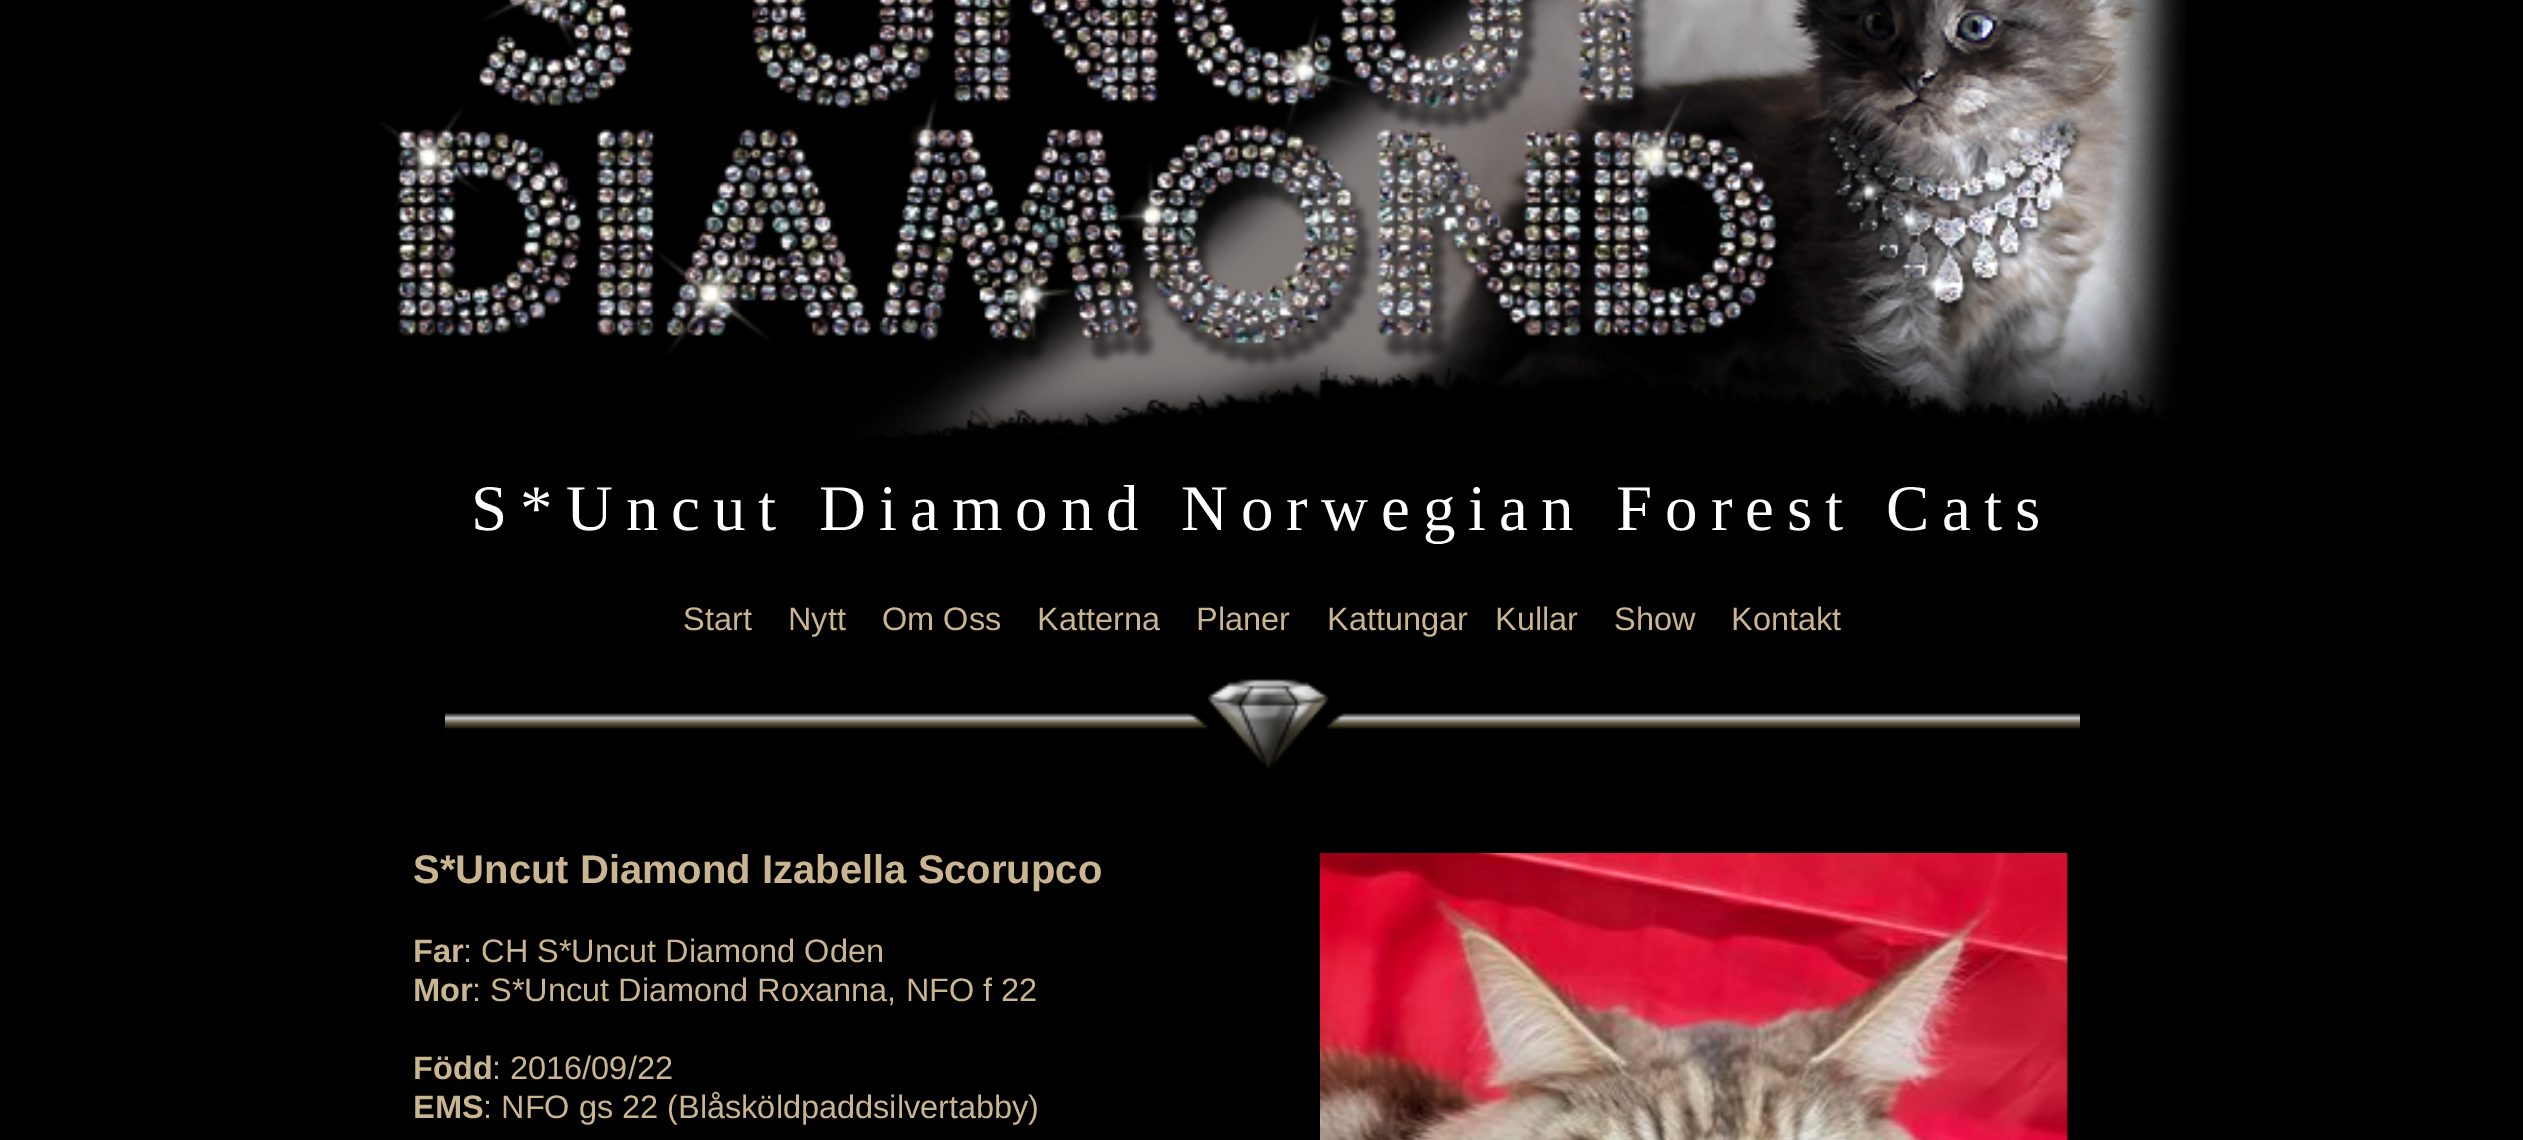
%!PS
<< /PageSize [2523 1140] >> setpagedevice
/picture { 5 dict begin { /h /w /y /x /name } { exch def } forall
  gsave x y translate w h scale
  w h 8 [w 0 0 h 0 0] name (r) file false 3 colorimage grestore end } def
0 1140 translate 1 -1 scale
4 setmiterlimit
0 setgray
0 0 2523 1140 rectfill
(img1.rgb) 380 0 1807 438 picture
/LiberationSerif-Regular [65 0 0 -65 0 0] selectfont
1 setgray
471 530 moveto 13 0 (S*Uncut Diamond Norwegian Forest Cats) ashow
/LiberationSans-Regular [32.5 0 0 -32.5 0 0] selectfont
0.792 0.71 0.569 setrgbcolor
683 630 moveto (Start) show
788 630 moveto (Nytt) show
882 630 moveto (Om Oss) show
1037 630 moveto (Katterna) show
1196 630 moveto (Planer) show
1327 630 moveto (Kattungar) show
1495 630 moveto (Kullar) show
1614 630 moveto (Show) show
1731 630 moveto (Kontakt) show
(img2.rgb) 445 679 1635 89 picture
/LiberationSans-Bold [40 0 0 -40 0 0] selectfont
413 883 moveto (S*Uncut Diamond Izabella Scorupco) show
/LiberationSans-Bold [32.5 0 0 -32.5 0 0] selectfont
413 962 moveto (Far) show
/LiberationSans-Regular [32.5 0 0 -32.5 0 0] selectfont
463 962 moveto (: CH S*Uncut Diamond Oden) show
/LiberationSans-Bold [32.5 0 0 -32.5 0 0] selectfont
413 1001 moveto (Mor) show
/LiberationSans-Regular [32.5 0 0 -32.5 0 0] selectfont
472 1001 moveto (: S*Uncut Diamond Roxanna, NFO f 22) show
/LiberationSans-Bold [32.5 0 0 -32.5 0 0] selectfont
413 1079 moveto (Född) show
/LiberationSans-Regular [32.5 0 0 -32.5 0 0] selectfont
492 1079 moveto (: 2016/09/22) show
/LiberationSans-Bold [32.5 0 0 -32.5 0 0] selectfont
413 1118 moveto (EMS) show
/LiberationSans-Regular [32.5 0 0 -32.5 0 0] selectfont
483 1118 moveto (: NFO gs 22 \(Blåsköldpaddsilvertabby\)) show
(img3.rgb) 1320 853 748 287 picture
showpage
